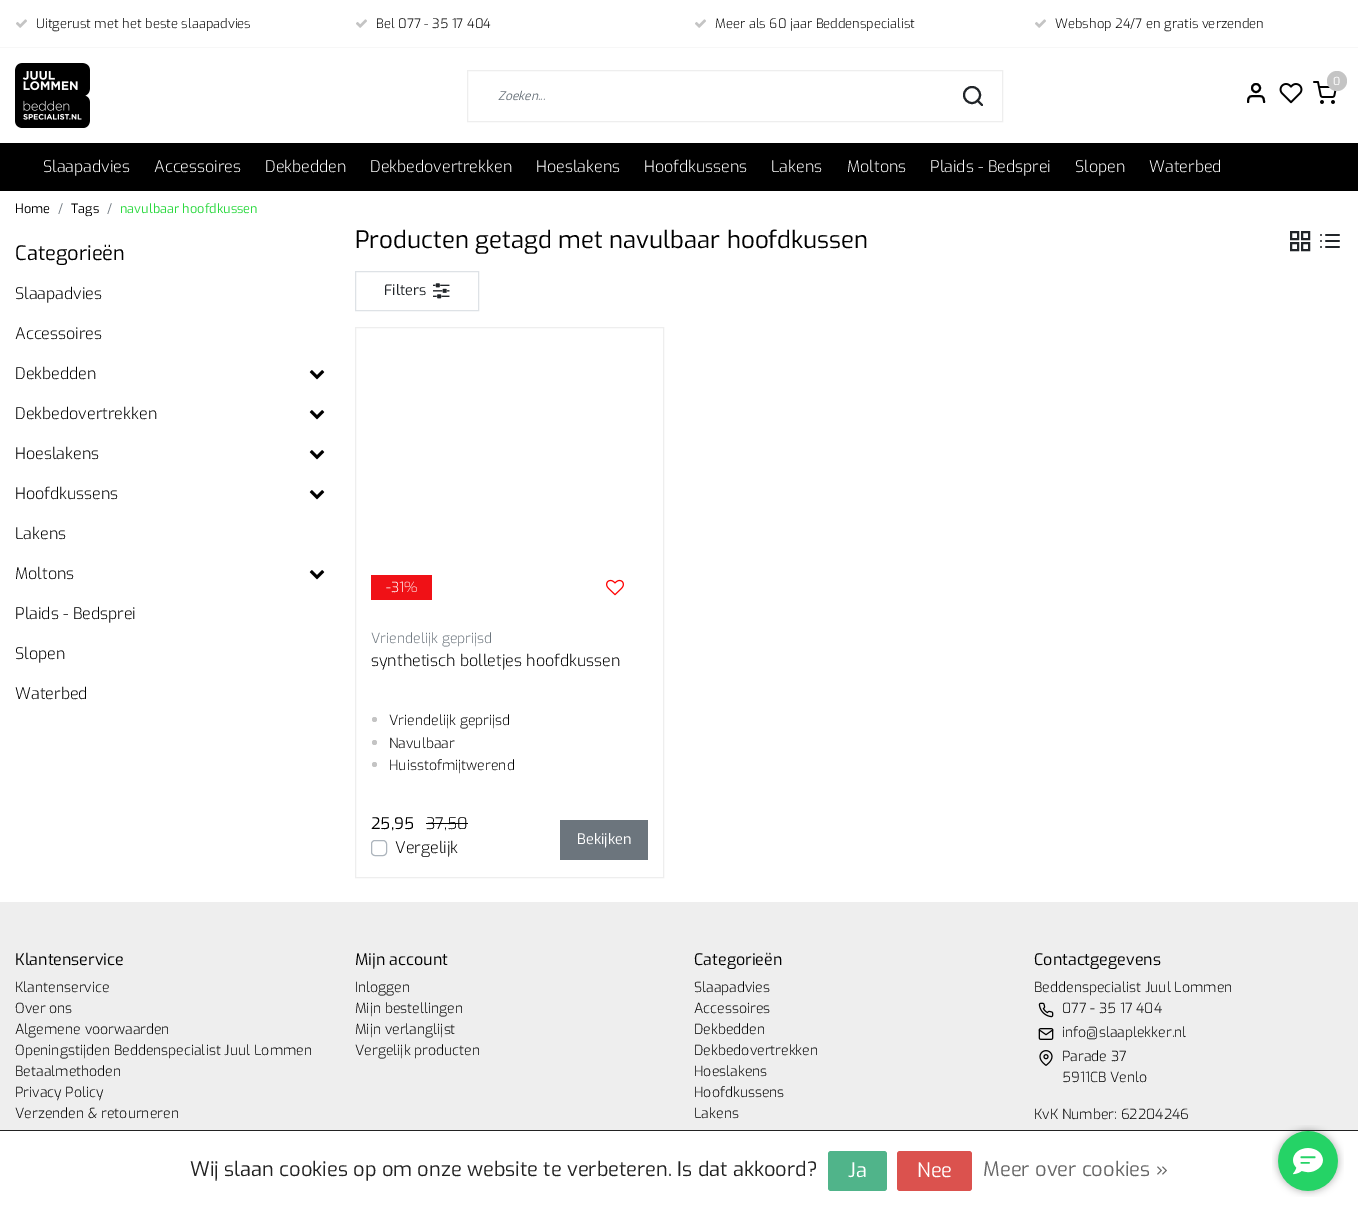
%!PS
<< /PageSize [1358 1211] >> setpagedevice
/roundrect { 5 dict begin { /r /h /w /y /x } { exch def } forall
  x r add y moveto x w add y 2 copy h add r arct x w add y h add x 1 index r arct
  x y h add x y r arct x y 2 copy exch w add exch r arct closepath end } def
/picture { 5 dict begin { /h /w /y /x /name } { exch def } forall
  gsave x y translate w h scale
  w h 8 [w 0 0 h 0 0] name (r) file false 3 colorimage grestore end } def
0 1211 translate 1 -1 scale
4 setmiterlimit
1 setgray
0 0 1358 1211 rectfill
0.969 setgray
0 47 1358 1 rectfill
(img1.rgb) 16 19 11 9 picture
/Exo-Light [13 0 0 -13 0 0] selectfont
0 setgray
36 28 moveto (Uitgerust met het beste slaapadvies) show
(img1.rgb) 356 19 11 9 picture
376 28 moveto (Bel 077 - 35 17 404) show
(img1.rgb) 695 19 11 9 picture
715 28 moveto (Meer als 60 jaar Beddenspecialist) show
(img1.rgb) 1035 19 11 9 picture
1055 28 moveto (Webshop 24/7 en gratis verzenden) show
(img2.rgb) 15 63 75 65 picture
(img3.rgb) 1313 81 24 23 picture
0.769 setgray
newpath 1337 81 10 0 360 arc closepath fill
/Exo-Regular [11 0 0 -11 0 0] selectfont
1 setgray
1333 85 moveto (0) show
0 setgray
2 setlinewidth
1 setlinecap
1 setlinejoin
newpath 1264 102 moveto 1264 95.5 1261.5 96 1256 96 curveto 1250.5 96 1248 95.5 1248 102 curveto stroke
0 setlinecap
0 setlinejoin
newpath 1256 88 4 0 360 arc closepath stroke
(img4.rgb) 1279 83 24 21 picture
0.933 setgray
1 setlinewidth
467.5 70.5 535 51 rectstroke
/Exo-Italic [12 0 0 -12 0 0] selectfont
0.424 0.459 0.49 setrgbcolor
498 100 moveto (Zoeken...) show
0.129 0.145 0.161 setrgbcolor
2 setlinewidth
newpath 972 95 8 0 360 arc closepath stroke
1 setlinecap
1 setlinejoin
newpath 982 105 moveto 977.5 100.5 lineto stroke
0 setgray
0 143 1358 48 rectfill
/Exo-Light [16 0 0 -16 0 0] selectfont
1 setgray
43 172 moveto (Slaapadvies) show
154 172 moveto (Accessoires) show
265 172 moveto (Dekbedden) show
370 172 moveto (Dekbedovertrekken) show
536 172 moveto (Hoeslakens) show
644 172 moveto (Hoofdkussens) show
771 172 moveto (Lakens) show
847 172 moveto (Moltons) show
930 172 moveto (Plaids - Bedsprei) show
1075 172 moveto (Slopen) show
1149 172 moveto (Waterbed) show
/Exo-Regular [12.75 0 0 -12.75 0 0] selectfont
0 setgray
15 213 moveto (Home) show
0.424 0.459 0.49 setrgbcolor
58 213 moveto (/) show
0 setgray
71 213 moveto (Tags) show
0.424 0.459 0.49 setrgbcolor
107 213 moveto (/) show
0.169 0.851 0.247 setrgbcolor
120 213 moveto (navulbaar hoofdkussen) show
/Exo-Regular [20 0 0 -20 0 0] selectfont
0 setgray
15 260 moveto (Categorieën) show
/Exo-Light [16 0 0 -16 0 0] selectfont
15 299 moveto (Slaapadvies) show
15 339 moveto (Accessoires) show
15 379 moveto (Dekbedden) show
(img5.rgb) 309 370 16 10 picture
15 419 moveto (Dekbedovertrekken) show
(img5.rgb) 309 410 16 10 picture
15 459 moveto (Hoeslakens) show
(img5.rgb) 309 450 16 10 picture
15 499 moveto (Hoofdkussens) show
(img5.rgb) 309 490 16 10 picture
15 539 moveto (Lakens) show
15 579 moveto (Moltons) show
(img5.rgb) 309 570 16 10 picture
15 619 moveto (Plaids - Bedsprei) show
15 659 moveto (Slopen) show
15 699 moveto (Waterbed) show
/Exo-Regular [24 0 0 -24 0 0] selectfont
355 248 moveto (Producten getagd met navulbaar hoofdkussen) show
0.129 0.145 0.161 setrgbcolor
0 setlinecap
0 setlinejoin
1291 232 7 7 rectstroke
1302 232 7 7 rectstroke
1302 243 7 7 rectstroke
1291 243 7 7 rectstroke
(img6.rgb) 1320 234 20 14 picture
0.871 0.886 0.902 setrgbcolor
1 setlinewidth
355.5 271.5 123 39 rectstroke
/Exo-Regular [14.5 0 0 -14.5 0 0] selectfont
0.129 0.145 0.161 setrgbcolor
384 295 moveto (Filters) show
(img7.rgb) 433 283 17 16 picture
0.933 setgray
355.5 327.5 308 550 rectstroke
0.941 0.067 0.086 setrgbcolor
371 575 61 25 rectfill
/Exo-Light [14 0 0 -14 0 0] selectfont
1 setgray
386 592 moveto (-31%) show
(img8.rgb) 606 579 18 17 picture
0.424 0.459 0.49 setrgbcolor
371 643 moveto (Vriendelijk geprijsd) show
/Exo-Light [16 0 0 -16 0 0] selectfont
0 setgray
371 666 moveto (synthetisch bolletjes hoofdkussen) show
0.769 setgray
newpath 374.5 719.5 2.5 0 360 arc closepath fill
/Exo-Light [14 0 0 -14 0 0] selectfont
0 setgray
389 725 moveto (Vriendelijk geprijsd) show
0.769 setgray
newpath 374.5 742.5 2.5 0 360 arc closepath fill
0 setgray
389 748 moveto (Navulbaar) show
0.769 setgray
newpath 374.5 764.5 2.5 0 360 arc closepath fill
0 setgray
389 770 moveto (Huisstofmijtwerend) show
/Exo-Regular [16 0 0 -16 0 0] selectfont
371 829 moveto (25,95) show
/Exo-Light [16 0 0 -16 0 0] selectfont
426 829 moveto (37,50) show
426 823 42 1 rectfill
0.678 0.71 0.741 setrgbcolor
371.5 840.5 15 15 3.5 roundrect stroke
0 setgray
395 853 moveto (Vergelijk) show
0.424 0.459 0.49 setrgbcolor
560 820 88 40 rectfill
/Exo-Regular [14.5 0 0 -14.5 0 0] selectfont
1 setgray
577 844 moveto (Bekijken) show
0.933 setgray
0 902 1358 228 rectfill
/Exo-Regular [16 0 0 -16 0 0] selectfont
0 setgray
15 965 moveto (Klantenservice) show
/Exo-Light [14 0 0 -14 0 0] selectfont
15 992 moveto (Klantenservice) show
15 1013 moveto (Over ons) show
15 1034 moveto (Algemene voorwaarden) show
15 1055 moveto (Openingstijden Beddenspecialist Juul Lommen) show
15 1076 moveto (Betaalmethoden) show
15 1097 moveto (Privacy Policy) show
15 1118 moveto (Verzenden & retourneren) show
/Exo-Regular [16 0 0 -16 0 0] selectfont
355 965 moveto (Mijn account) show
/Exo-Light [14 0 0 -14 0 0] selectfont
355 992 moveto (Inloggen) show
355 1013 moveto (Mijn bestellingen) show
355 1034 moveto (Mijn verlanglijst) show
355 1055 moveto (Vergelijk producten) show
/Exo-Regular [16 0 0 -16 0 0] selectfont
694 965 moveto (Categorieën) show
/Exo-Light [14 0 0 -14 0 0] selectfont
694 992 moveto (Slaapadvies) show
694 1013 moveto (Accessoires) show
694 1034 moveto (Dekbedden) show
694 1055 moveto (Dekbedovertrekken) show
694 1076 moveto (Hoeslakens) show
694 1097 moveto (Hoofdkussens) show
694 1118 moveto (Lakens) show
/Exo-Regular [16 0 0 -16 0 0] selectfont
1034 965 moveto (Contactgegevens) show
/Exo-Light [14 0 0 -14 0 0] selectfont
1034 992 moveto (Beddenspecialist Juul Lommen) show
(img9.rgb) 1038 1002 16 16 picture
1062 1013 moveto (077 - 35 17 404) show
(img10.rgb) 1038 1028 16 12 picture
1062 1037 moveto (info@slaaplekker.nl) show
(img11.rgb) 1039 1050 14 16 picture
1062 1061 moveto (Parade 37) show
1062 1082 moveto (5911CB Venlo) show
1034 1119 moveto (KvK Number: 62204246) show
0.133 setgray
0 1130 1358 1 rectfill
/Exo-Regular [20 0 0 -20 0 0] selectfont
190 1176 moveto (Wij slaan cookies op om onze website te verbeteren. Is dat akkoord?) show
0.314 0.706 0.541 setrgbcolor
828 1151 59 40 3 roundrect fill
1 setgray
848 1177 moveto (Ja) show
0.859 0.322 0.306 setrgbcolor
897 1151 75 40 3 roundrect fill
1 setgray
917 1177 moveto (Nee) show
0.4 setgray
983 1176 moveto (Meer over cookies ») show
(img12.rgb) 1272 1125 72 72 picture
showpage
